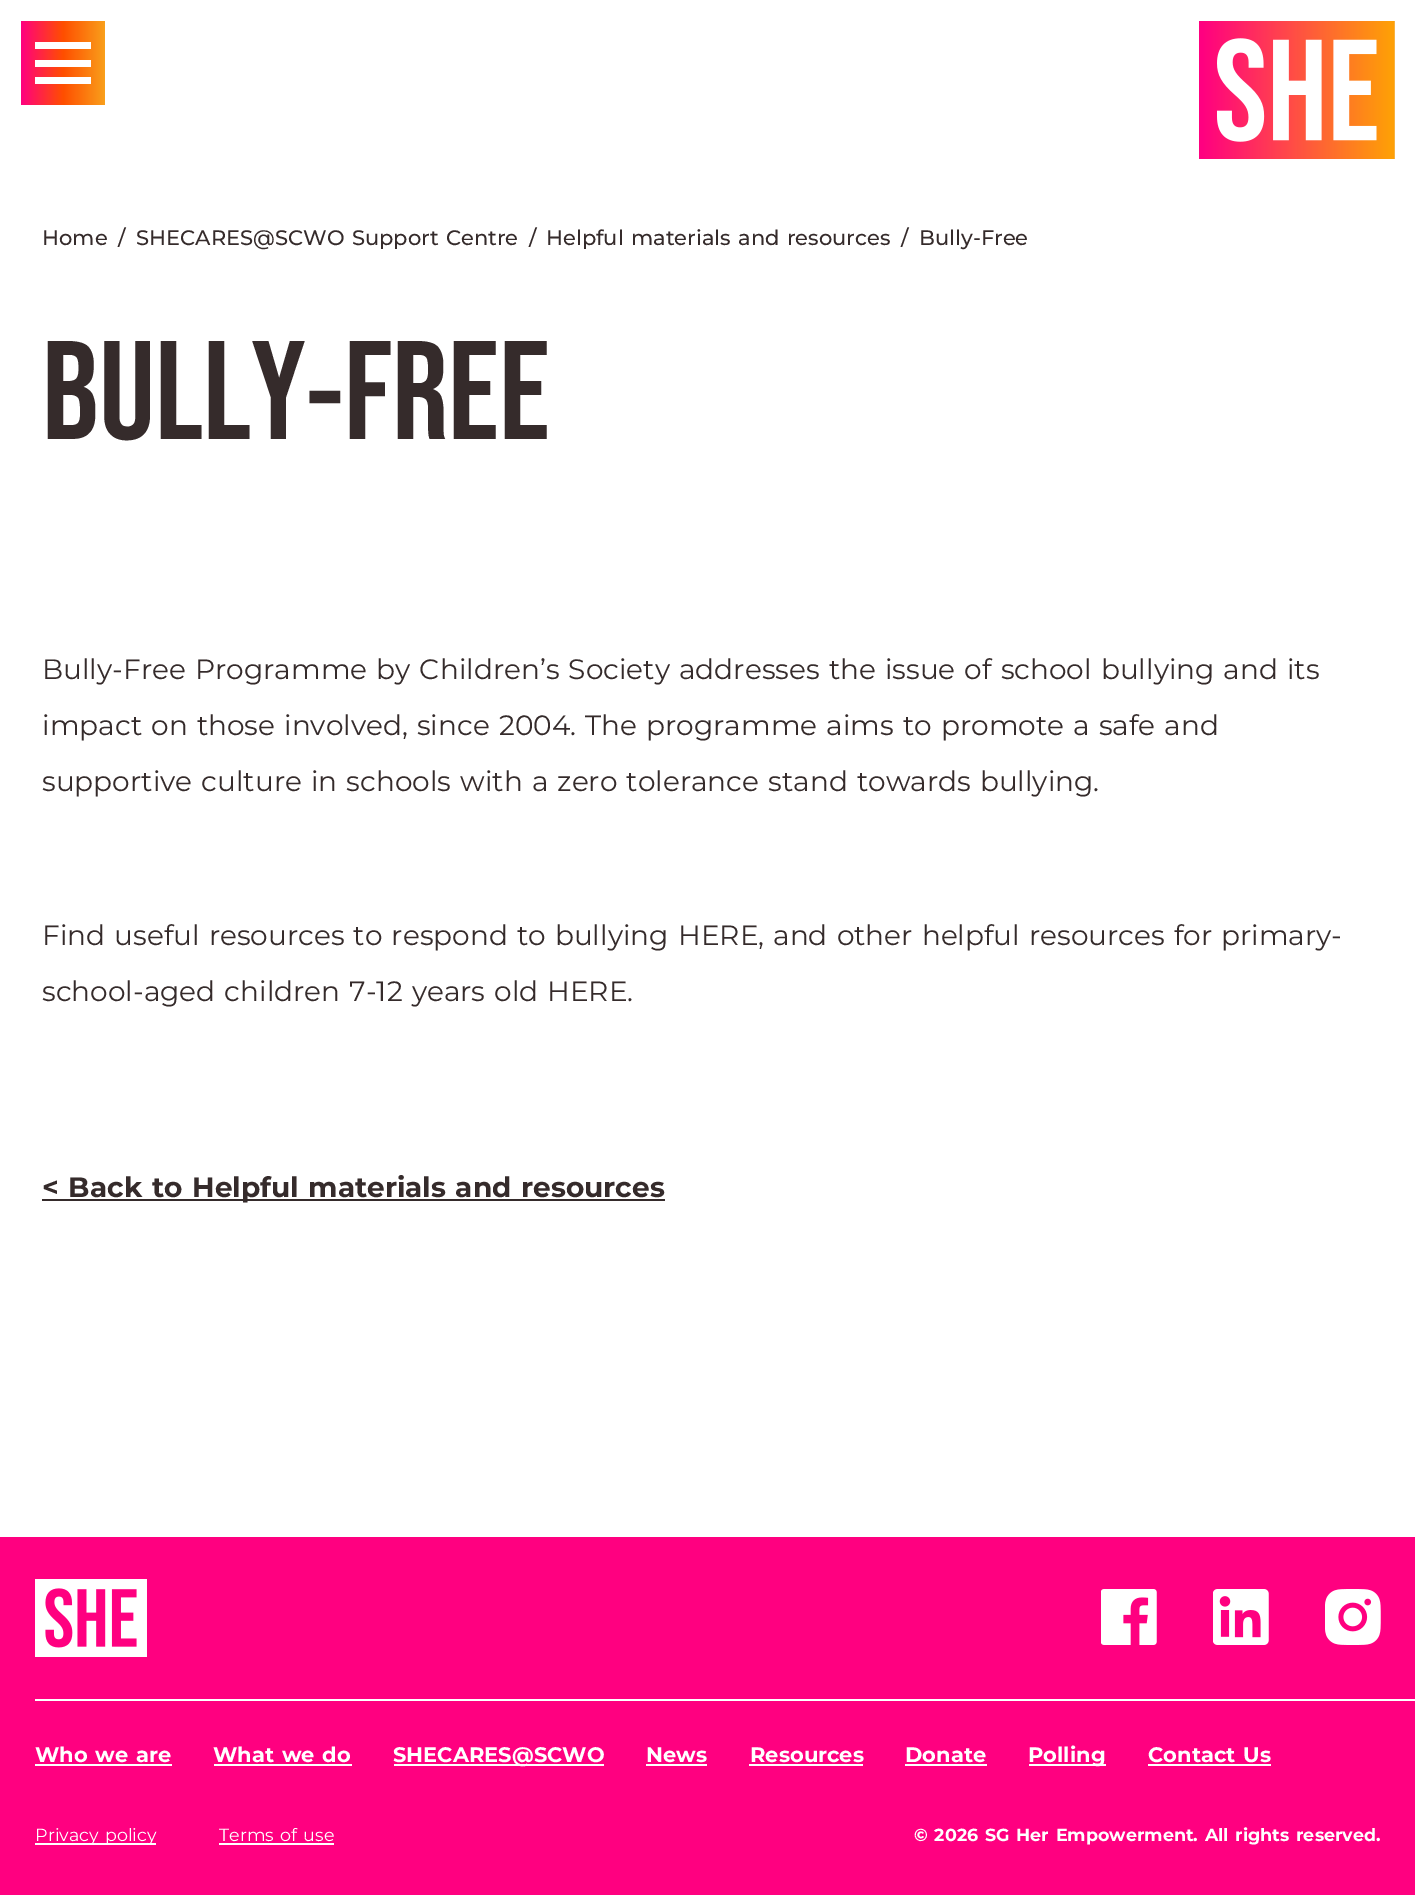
%!PS
<< /PageSize [1415 1895] >> setpagedevice
/picture { 5 dict begin { /h /w /y /x /name } { exch def } forall
  gsave x y translate w h scale
  w h 8 [w 0 0 h 0 0] name (r) file false 3 colorimage grestore end } def
0 1895 translate 1 -1 scale
4 setmiterlimit
1 setgray
0 0 1415 1895 rectfill
gsave newpath 21 21 moveto 105 21 lineto 105 105 lineto 21 105 lineto closepath clip newpath
<< /ShadingType 2 /ColorSpace /DeviceRGB /Coords [21 63 105 63] /Extend [true true] /Function << /FunctionType 3 /Domain [0 1] /Functions [<< /FunctionType 2 /Domain [0 1] /C0 [1 0 0.502] /C1 [1 0.306 0] /N 1 >> << /FunctionType 2 /Domain [0 1] /C0 [1 0.306 0] /C1 [0.976 0.624 0.106] /N 1 >>] /Bounds [0.5] /Encode [0 1 0 1] >> >> shfill grestore
35 42 56 7 rectfill
35 60 56 7 rectfill
35 77 56 7 rectfill
(img1.rgb) 1199 21 196 138 picture
/Montserrat-Medium [21 0 0 -21 0 0] selectfont
0.208 0.169 0.169 setrgbcolor
42 245 moveto (Home) show
118 245 moveto (/) show
136 245 moveto 1.75 0 32 (SHECARES@SCWO Support Centre) widthshow
529 245 moveto (/) show
546 245 moveto 1.75 0 32 (Helpful materials and resources) widthshow
901 245 moveto (/) show
919 245 moveto (Bully-Free) show
/BebasNeue-Bold [140 0 0 -140 0 0] selectfont
42 439 moveto (BULLY-FREE) show
/Montserrat-Regular [28 0 0 -28 0 0] selectfont
42 679 moveto (Bully-Free) show
195 679 moveto 1.75 0 32 (Programme by Children’s Society addresses the issue of school bullying and its) widthshow
42 735 moveto 1.75 0 32 (impact on those involved, since 2004. The programme aims to promote a safe and) widthshow
42 791 moveto 1.75 0 32 (supportive culture in schools with a zero tolerance stand towards bullying.) widthshow
42 945 moveto 1.75 0 32 (Find useful resources to respond to bullying) widthshow
678 945 moveto (HERE) show
758 945 moveto 1.75 0 32 (, and other helpful resources for primary-) widthshow
42 1001 moveto 1.75 0 32 (school-aged children 7-12 years old) widthshow
547 1001 moveto (HERE.) show
42 1199 623 2 rectfill
/Montserrat-Bold [28 0 0 -28 0 0] selectfont
42 1197 moveto 1.75 0 32 (< Back to Helpful materials and resources) widthshow
1 0 0.502 setrgbcolor
0 1537 1415 358 rectfill
(img2.rgb) 35 1579 112 78 picture
(img3.rgb) 1101 1589 56 56 picture
(img4.rgb) 1213 1589 56 56 picture
(img5.rgb) 1325 1589 56 56 picture
1 setgray
35 1699 1380 2 rectfill
/Montserrat-Bold [21 0 0 -21 0 0] selectfont
35 1762 moveto 1.75 0 32 (Who we are) widthshow
35 1764 137 2 rectfill
213 1762 moveto 1.75 0 32 (What we do) widthshow
214 1764 138 2 rectfill
394 1764 210 2 rectfill
393 1762 moveto (SHECARES@SCWO) show
646 1762 moveto (News) show
646 1764 61 2 rectfill
750 1762 moveto (Resources) show
749 1764 114 2 rectfill
905 1762 moveto (Donate) show
905 1764 82 2 rectfill
1029 1764 77 2 rectfill
1028 1762 moveto (Polling) show
1148 1762 moveto 1.75 0 32 (Contact Us) widthshow
1148 1764 123 2 rectfill
35 1843 121 2 rectfill
/Montserrat-Regular [17.5 0 0 -17.5 0 0] selectfont
35 1841 moveto 1.75 0 32 (Privacy policy) widthshow
219 1841 moveto 1.75 0 32 (Terms of use) widthshow
219 1843 115 2 rectfill
/Montserrat-Bold [17.5 0 0 -17.5 0 0] selectfont
914 1841 moveto 1.75 0 32 (© 2026 SG Her Empowerment. All rights reserved.) widthshow
showpage
